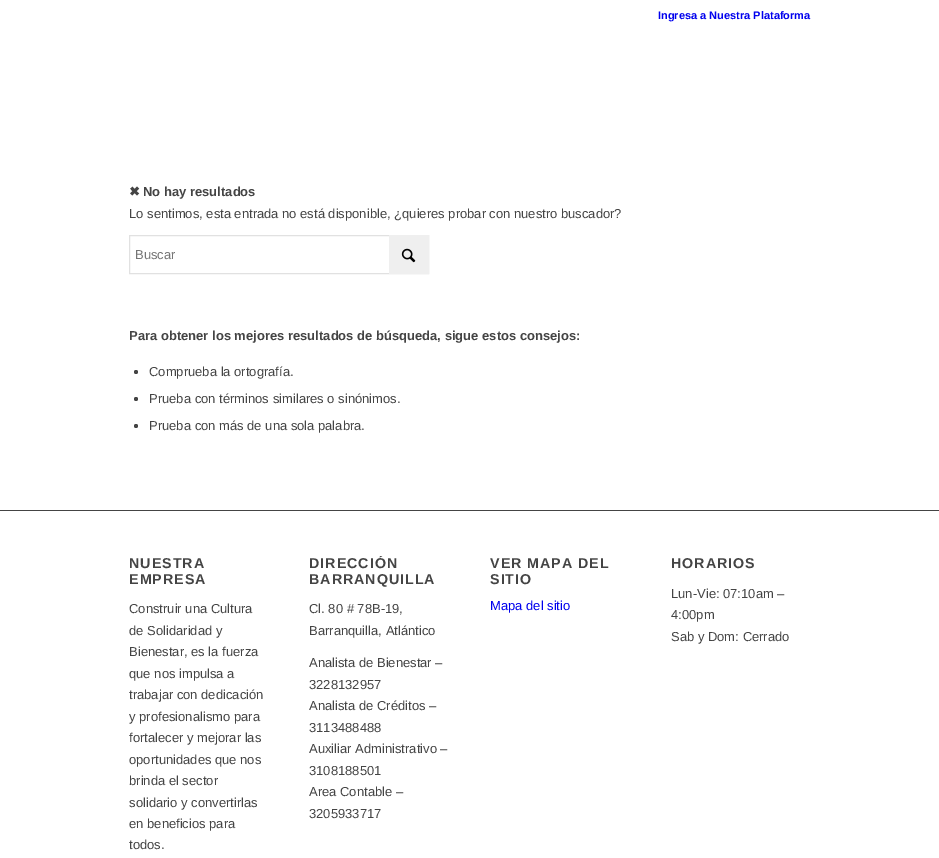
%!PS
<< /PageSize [939 858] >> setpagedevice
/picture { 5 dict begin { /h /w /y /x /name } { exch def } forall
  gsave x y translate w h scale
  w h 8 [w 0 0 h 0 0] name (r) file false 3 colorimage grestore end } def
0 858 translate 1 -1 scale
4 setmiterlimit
1 setgray
0 0 939 858 rectfill
/LiberationSans-Bold [11 0 0 -11 0 0] selectfont
0 0 0.933 setrgbcolor
658 19 moveto (Ingresa a Nuestra Plataforma) show
/DejaVuSans-Bold [13 0 0 -13 0 0] selectfont
0.267 setgray
129 196 moveto (✖) show
/LiberationSans-Bold [13 0 0 -13 0 0] selectfont
143 196 moveto (No hay resultados) show
/LiberationSans-Regular [13 0 0 -13 0 0] selectfont
129 218 moveto (Lo sentimos, esta entrada no está disponible, ¿quieres probar con nuestro buscador?) show
0.882 setgray
129.5 235.5 299 38 rectstroke
0.937 setgray
389 235 40 39 rectfill
0.459 setgray
135 259 moveto (Buscar) show
(img1.rgb) 401 248 15 15 picture
/LiberationSans-Bold [13 0 0 -13 0 0] selectfont
0.267 setgray
129 340 moveto (Para obtener los mejores resultados de búsqueda, sigue estos consejos:) show
newpath 136 372 2 0 360 arc closepath fill
/LiberationSans-Regular [13 0 0 -13 0 0] selectfont
149 376 moveto (Comprueba la ortografía.) show
newpath 136 399 2 0 360 arc closepath fill
149 403 moveto (Prueba con términos similares o sinónimos.) show
newpath 136 426 2 0 360 arc closepath fill
149 430 moveto (Prueba con más de una sola palabra.) show
0 510 939 1 rectfill
/LiberationSans-Bold [14.25 0 0 -14.25 0 0] selectfont
129 568 moveto 1 0 (NUESTRA) ashow
129 584 moveto 1 0 (EMPRESA) ashow
/LiberationSans-Regular [13 0 0 -13 0 0] selectfont
129 613 moveto (Construir una Cultura) show
129 635 moveto (de Solidaridad y) show
129 656 moveto (Bienestar, es la fuerza) show
129 678 moveto (que nos impulsa a) show
129 699 moveto (trabajar con dedicación) show
129 721 moveto (y profesionalismo para) show
129 742 moveto (fortalecer y mejorar las) show
129 764 moveto (oportunidades que nos) show
129 785 moveto (brinda el sector) show
129 807 moveto (solidario y convertirlas) show
129 828 moveto (en beneficios para) show
129 849 moveto (todos.) show
gsave
309 556 140 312 rectclip
/LiberationSans-Bold [14.25 0 0 -14.25 0 0] selectfont
309 568 moveto 1 0 (DIRECCIÓN) ashow
grestore
/LiberationSans-Bold [14.25 0 0 -14.25 0 0] selectfont
309 584 moveto 1 0 (BARRANQUILLA) ashow
/LiberationSans-Regular [13 0 0 -13 0 0] selectfont
309 613 moveto (Cl. 80 # 78B-19,) show
309 635 moveto (Barranquilla, Atlántico) show
309 667 moveto (Analista de Bienestar –) show
309 689 moveto (3228132957) show
309 710 moveto (Analista de Créditos –) show
309 732 moveto (3113488488) show
309 753 moveto (Auxiliar Administrativo –) show
309 775 moveto (3108188501) show
309 796 moveto (Area Contable –) show
309 818 moveto (3205933717) show
/LiberationSans-Bold [14.25 0 0 -14.25 0 0] selectfont
490 568 moveto 1 0 (VER MAPA DEL) ashow
490 584 moveto 1 0 (SITIO) ashow
/LiberationSans-Regular [13 0 0 -13 0 0] selectfont
0 0 0.933 setrgbcolor
490 610 moveto (Mapa del sitio) show
/LiberationSans-Bold [14.25 0 0 -14.25 0 0] selectfont
0.267 setgray
671 568 moveto 1 0 (HORARIOS) ashow
/LiberationSans-Regular [13 0 0 -13 0 0] selectfont
671 598 moveto (Lun-Vie: 07:10am –) show
671 619 moveto (4:00pm) show
671 641 moveto (Sab y Dom: Cerrado) show
showpage
